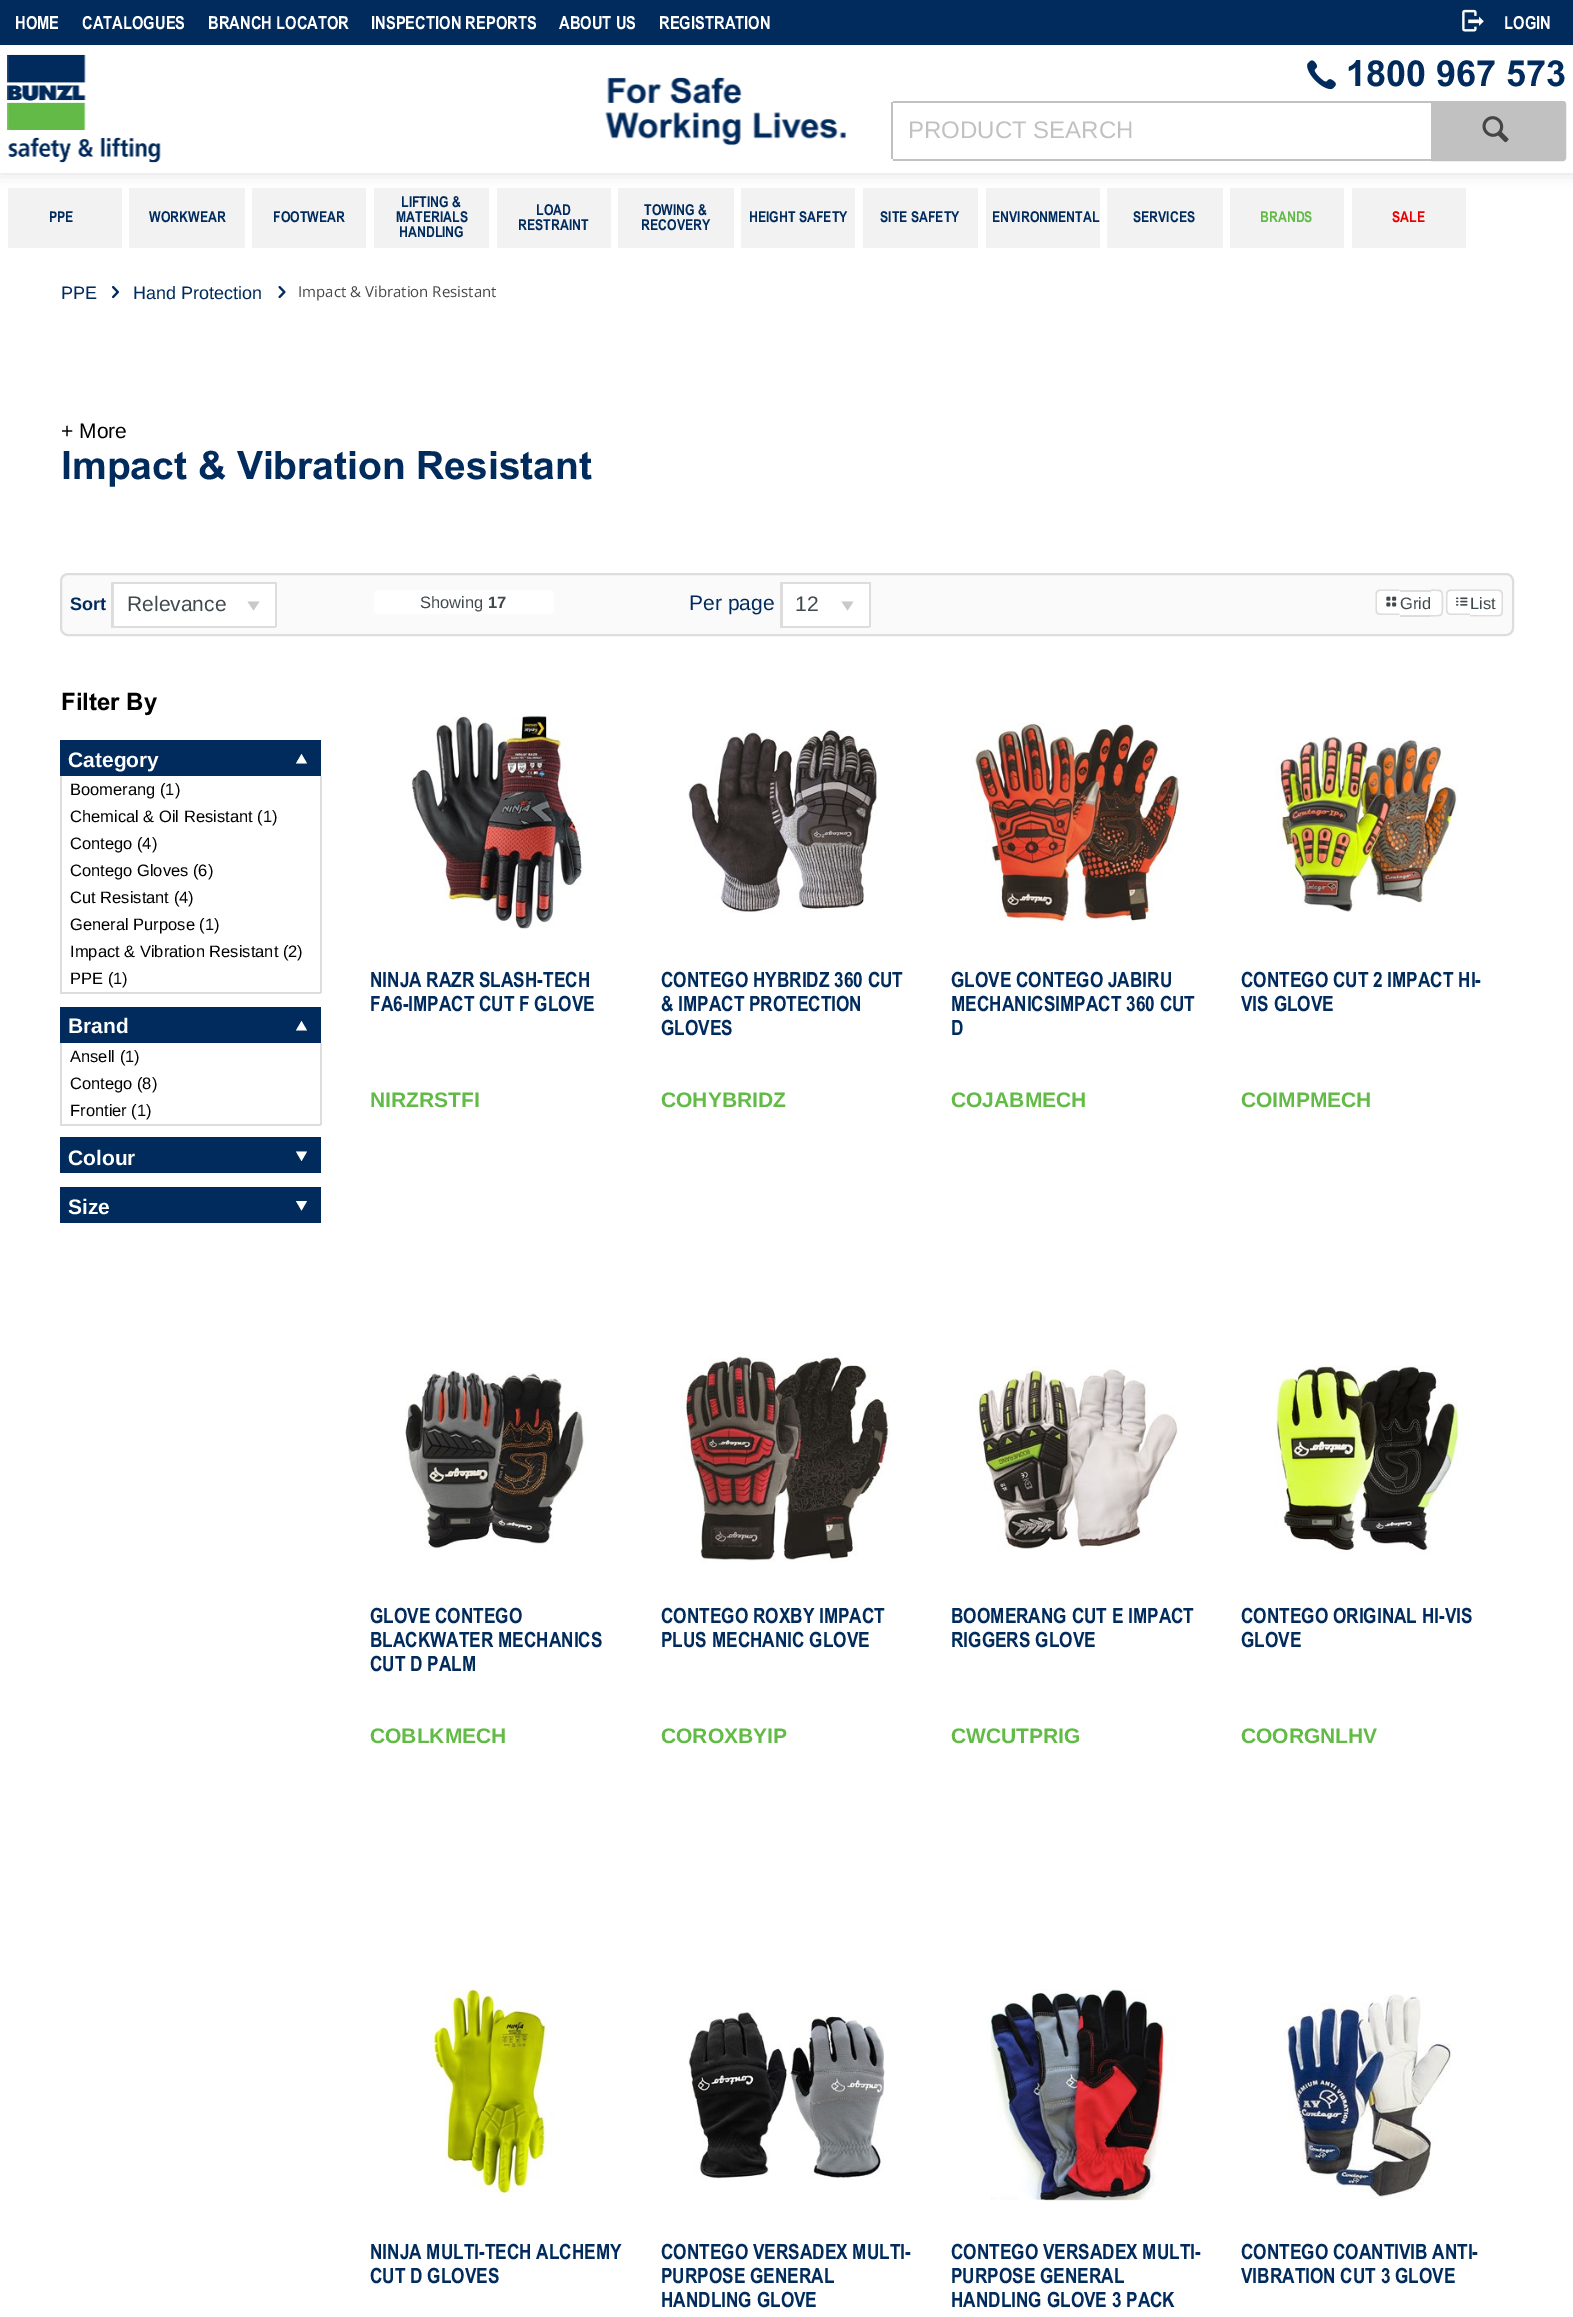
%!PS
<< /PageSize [1573 2317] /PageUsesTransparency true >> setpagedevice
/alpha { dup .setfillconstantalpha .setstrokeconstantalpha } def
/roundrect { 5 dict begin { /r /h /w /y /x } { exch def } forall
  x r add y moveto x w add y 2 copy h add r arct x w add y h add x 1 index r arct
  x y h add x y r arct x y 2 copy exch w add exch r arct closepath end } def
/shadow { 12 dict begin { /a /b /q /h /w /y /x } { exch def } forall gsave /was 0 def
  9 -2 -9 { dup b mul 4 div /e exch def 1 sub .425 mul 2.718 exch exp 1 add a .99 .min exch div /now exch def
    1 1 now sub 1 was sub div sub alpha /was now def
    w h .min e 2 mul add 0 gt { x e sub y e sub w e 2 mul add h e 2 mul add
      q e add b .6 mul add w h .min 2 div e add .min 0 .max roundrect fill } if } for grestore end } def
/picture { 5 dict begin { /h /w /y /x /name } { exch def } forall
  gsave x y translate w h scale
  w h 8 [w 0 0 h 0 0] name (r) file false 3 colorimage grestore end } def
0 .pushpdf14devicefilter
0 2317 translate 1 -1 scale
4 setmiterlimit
1 setgray
0 0 1573 2317 rectfill
gsave
newpath 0 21 moveto 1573 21 lineto 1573 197 lineto 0 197 lineto closepath 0 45 moveto 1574 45 lineto 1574 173 lineto 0 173 lineto closepath eoclip newpath
0.863 setgray
0 45 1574 128 0 7.5 1 shadow
grestore
0 0.169 0.361 setrgbcolor
0 0 1573 45 rectfill
/Arial-Bold [18 0 0 -18 0 0] selectfont
1 setgray
15 29 moveto (HOME) show
82 29 moveto (CATALOGUES) show
208 29 moveto (BRANCH LOCATOR) show
371 29 moveto (INSPECTION REPORTS) show
559 29 moveto (ABOUT US) show
659 29 moveto (REGISTRATION) show
(img1.rgb) 1462 9 22 23 picture
1504 29 moveto (LOGIN) show
(img2.rgb) 7 54 154 109 picture
(img3.rgb) 1307 60 29 30 picture
/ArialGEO-Bold [36 0 0 -36 0 0] selectfont
0 0.169 0.361 setrgbcolor
1346 86 moveto (1800 967 573) show
(img4.rgb) 605 77 241 69 picture
0.757 setgray
893 101 538 2 rectfill
893 159 538 2 rectfill
891 102 2 57 rectfill
/LiberationSans-Regular [24 0 0 -24 0 0] selectfont
908 138 moveto (PRODUCT SEARCH) show
newpath 1432 102 moveto 1563 102 lineto 1564 102 1565 103 1565 104 curveto 1565 158 lineto 1565 159 1564 160 1563 160 curveto 1432 160 lineto closepath gsave fill grestore
2 setlinewidth
stroke
(img5.rgb) 1482 116 27 27 picture
0.949 setgray
8 188 114 60 rectfill
/Arial-Bold [15 0 0 -15 0 0] selectfont
0 0.169 0.361 setrgbcolor
49 222 moveto (PPE) show
0.949 setgray
129 188 116 60 rectfill
0 0.169 0.361 setrgbcolor
149 222 moveto (WORKWEAR) show
0.949 setgray
252 188 114 60 rectfill
0 0.169 0.361 setrgbcolor
273 222 moveto (FOOTWEAR) show
0.949 setgray
374 188 115 60 rectfill
0 0.169 0.361 setrgbcolor
401 207 moveto (LIFTING &) show
396 222 moveto (MATERIALS) show
399 237 moveto (HANDLING) show
0.949 setgray
497 188 114 60 rectfill
0 0.169 0.361 setrgbcolor
536 215 moveto (LOAD) show
518 230 moveto (RESTRAINT) show
0.949 setgray
618 188 116 60 rectfill
0 0.169 0.361 setrgbcolor
644 215 moveto (TOWING &) show
641 230 moveto (RECOVERY) show
0.949 setgray
741 188 114 60 rectfill
0 0.169 0.361 setrgbcolor
749 222 moveto (HEIGHT SAFETY) show
0.949 setgray
863 188 115 60 rectfill
0 0.169 0.361 setrgbcolor
880 222 moveto (SITE SAFETY) show
0.949 setgray
986 188 114 60 rectfill
0 0.169 0.361 setrgbcolor
992 222 moveto (ENVIRONMENTAL) show
0.949 setgray
1107 188 116 60 rectfill
0 0.169 0.361 setrgbcolor
1133 222 moveto (SERVICES) show
0.949 setgray
1230 188 114 60 rectfill
0.384 0.733 0.275 setrgbcolor
1260 222 moveto (BRANDS) show
0.949 setgray
1352 188 114 60 rectfill
0.918 0 0 setrgbcolor
1392 222 moveto (SALE) show
/LiberationSans-Regular [18 0 0 -18 0 0] selectfont
0 0.169 0.361 setrgbcolor
61 299 moveto (PPE) show
(img6.rgb) 112 286 7 13 picture
133 299 moveto (Hand Protection) show
(img7.rgb) 278 286 8 13 picture
/OpenSans-Regular [15 0 0 -15 0 0] selectfont
0.278 setgray
298 297 moveto (Impact & Vibration Resistant) show
/LiberationSans-Regular [21 0 0 -21 0 0] selectfont
0 setgray
61 438 moveto (+ More) show
/ArialGEO-Bold [39 0 0 -39 0 0] selectfont
0 0.169 0.361 setrgbcolor
61 479 moveto (Impact & Vibration Resistant) show
0.98 setgray
61 574 1452 61 7 roundrect gsave fill grestore
0.867 setgray
stroke
/LiberationSans-Bold [18 0 0 -18 0 0] selectfont
0 0.169 0.361 setrgbcolor
70 610 moveto (Sort) show
1 setgray
114 584 161 42 rectfill
0.867 setgray
111 582 165 2 rectfill
275 582 2 45 rectfill
111 626 165 2 rectfill
111 582 3 45 rectfill
/LiberationSans-Regular [21 0 0 -21 0 0] selectfont
0.251 0.286 0.298 setrgbcolor
127 611 moveto (Relevance) show
0.788 setgray
newpath 253.5 610.5 moveto 247.5 601.5 lineto 259.5 601.5 lineto closepath fill
1 setgray
374 590 180 24 5 roundrect fill
/LiberationSans-Regular [16.5 0 0 -16.5 0 0] selectfont
0.251 0.286 0.298 setrgbcolor
420 608 moveto (Showing) show
/LiberationSans-Bold [16.5 0 0 -16.5 0 0] selectfont
488 608 moveto (17) show
/LiberationSans-Regular [21 0 0 -21 0 0] selectfont
0 0.169 0.361 setrgbcolor
689 610 moveto (Per page) show
1 setgray
783 584 86 42 rectfill
0.867 setgray
780 582 90 2 rectfill
869 582 2 45 rectfill
780 626 90 2 rectfill
780 582 3 45 rectfill
0.251 0.286 0.298 setrgbcolor
795 611 moveto (12) show
0.788 setgray
newpath 847.5 610.5 moveto 841.5 601.5 lineto 853.5 601.5 lineto closepath fill
1 setgray
newpath 1381 590 moveto 1400 590 lineto 1400 615 lineto 1381 615 lineto 1378 615 1376 613 1376 610 curveto 1376 595 lineto 1376 592 1378 590 1381 590 curveto closepath fill
0.867 setgray
newpath 1380 589.5 moveto 1399.5 589.5 lineto 1399.5 615 lineto 1380 615 lineto 1377.5 615 1375.5 613 1375.5 610.5 curveto 1375.5 594 lineto 1375.5 591.5 1377.5 589.5 1380 589.5 curveto closepath 1380 591 moveto 1399.5 591 lineto 1399.5 613.5 lineto 1380 613.5 lineto 1378.5 613.5 1377 612 1377 610.5 curveto 1377 594 lineto 1377 592.5 1378.5 591 1380 591 curveto closepath eofill
(img8.rgb) 1386 596 11 11 picture
1 setgray
1400 592 31 23 rectfill
/LiberationSans-Regular [16.5 0 0 -16.5 0 0] selectfont
0.251 0.286 0.298 setrgbcolor
1400 609 moveto (Grid) show
0.867 setgray
1400 590 31 2 rectfill
1400 615 31 2 rectfill
1 setgray
newpath 1431 590 moveto 1438 590 lineto 1441 590 1443 592 1443 595 curveto 1443 612 lineto 1443 615 1441 617 1438 617 curveto 1431 617 lineto closepath fill
0.867 setgray
newpath 1431 589.5 moveto 1444 589.5 1443 589 1443 603 curveto 1443 617 1444 616.5 1431 616.5 curveto closepath 1431 591 moveto 1443 591 1441.5 590 1441.5 603 curveto 1441.5 616 1443 615 1431 615 curveto closepath eofill
1 setgray
newpath 1451 590 moveto 1470 590 lineto 1470 615 lineto 1451 615 lineto 1448 615 1446 613 1446 610 curveto 1446 595 lineto 1446 592 1448 590 1451 590 curveto closepath fill
0.867 setgray
newpath 1450.5 589.5 moveto 1470 589.5 lineto 1470 615 lineto 1450.5 615 lineto 1448 615 1446 613 1446 610.5 curveto 1446 594 lineto 1446 591.5 1448 589.5 1450.5 589.5 curveto closepath 1450.5 591 moveto 1470 591 lineto 1470 613.5 lineto 1450.5 613.5 lineto 1449 613.5 1447.5 612 1447.5 610.5 curveto 1447.5 594 lineto 1447.5 592.5 1449 591 1450.5 591 curveto closepath eofill
(img9.rgb) 1456 597 12 9 picture
1 setgray
newpath 1470 590 moveto 1498 590 lineto 1501 590 1503 592 1503 595 curveto 1503 612 lineto 1503 615 1501 617 1498 617 curveto 1470 617 lineto closepath fill
0.867 setgray
newpath 1470 589.5 moveto 1498.5 589.5 lineto 1501 589.5 1503 591.5 1503 594 curveto 1503 612 lineto 1503 614.5 1501 616.5 1498.5 616.5 curveto 1470 616.5 lineto closepath 1470 591 moveto 1498.5 591 lineto 1500 591 1501.5 592.5 1501.5 594 curveto 1501.5 612 lineto 1501.5 613.5 1500 615 1498.5 615 curveto 1470 615 lineto closepath eofill
0.251 0.286 0.298 setrgbcolor
1470 609 moveto (List) show
/ArialGEO-Bold [24 0 0 -24 0 0] selectfont
0 setgray
61 710 moveto (Filter By) show
0 0.169 0.361 setrgbcolor
60 740 261 36 rectfill
/LiberationSans-Bold [21 0 0 -21 0 0] selectfont
1 setgray
68 767 moveto (Category) show
newpath 296 763.5 moveto 307 763.5 lineto 301.5 754 lineto closepath fill
0.867 setgray
320 776 2 217 rectfill
60 992 261 2 rectfill
60 776 2 217 rectfill
/LiberationSans-Regular [16.5 0 0 -16.5 0 0] selectfont
0 setgray
70 795 moveto (Boomerang \(1\)) show
70 822 moveto (Chemical & Oil Resistant \(1\)) show
70 849 moveto (Contego \(4\)) show
70 876 moveto (Contego Gloves \(6\)) show
70 903 moveto (Cut Resistant \(4\)) show
70 930 moveto (General Purpose \(1\)) show
70 957 moveto (Impact & Vibration Resistant \(2\)) show
70 984 moveto (PPE \(1\)) show
0 0.169 0.361 setrgbcolor
60 1007 261 36 rectfill
/LiberationSans-Bold [21 0 0 -21 0 0] selectfont
1 setgray
68 1033 moveto (Brand) show
newpath 296 1030.5 moveto 307 1030.5 lineto 301.5 1021 lineto closepath fill
0.867 setgray
320 1043 2 82 rectfill
60 1124 261 2 rectfill
60 1043 2 82 rectfill
/LiberationSans-Regular [16.5 0 0 -16.5 0 0] selectfont
0 setgray
70 1062 moveto (Ansell \(1\)) show
70 1089 moveto (Contego \(8\)) show
70 1116 moveto (Frontier \(1\)) show
0 0.169 0.361 setrgbcolor
60 1137 261 36 rectfill
/LiberationSans-Bold [21 0 0 -21 0 0] selectfont
1 setgray
68 1165 moveto (Colour) show
newpath 307 1151.5 moveto 296 1151.5 lineto 301.5 1161 lineto closepath fill
0 0.169 0.361 setrgbcolor
60 1187 261 36 rectfill
1 setgray
68 1214 moveto (Size) show
newpath 307 1201 moveto 296 1201 lineto 301.5 1210.5 lineto closepath fill
(img10.rgb) 411 715 171 214 picture
/Arial-Bold [21 0 0 -21 0 0] selectfont
0 0.169 0.361 setrgbcolor
370 987 moveto (NINJA RAZR SLASH-TECH) show
370 1011 moveto (FA6-IMPACT CUT F GLOVE) show
/LiberationSans-Bold [21 0 0 -21 0 0] selectfont
0.384 0.733 0.275 setrgbcolor
370 1107 moveto (NIRZRSTFI) show
(img11.rgb) 688 729 189 184 picture
/Arial-Bold [21 0 0 -21 0 0] selectfont
0 0.169 0.361 setrgbcolor
661 987 moveto (CONTEGO HYBRIDZ 360 CUT) show
661 1011 moveto (& IMPACT PROTECTION) show
661 1035 moveto (GLOVES) show
/LiberationSans-Bold [21 0 0 -21 0 0] selectfont
0.384 0.733 0.275 setrgbcolor
661 1107 moveto (COHYBRIDZ) show
(img12.rgb) 971 722 211 202 picture
/Arial-Bold [21 0 0 -21 0 0] selectfont
0 0.169 0.361 setrgbcolor
951 987 moveto (GLOVE CONTEGO JABIRU) show
951 1011 moveto (MECHANICSIMPACT 360 CUT) show
951 1035 moveto (D) show
/LiberationSans-Bold [21 0 0 -21 0 0] selectfont
0.384 0.733 0.275 setrgbcolor
951 1107 moveto (COJABMECH) show
(img13.rgb) 1275 736 183 176 picture
/Arial-Bold [21 0 0 -21 0 0] selectfont
0 0.169 0.361 setrgbcolor
1241 987 moveto (CONTEGO CUT 2 IMPACT HI-) show
1241 1011 moveto (VIS GLOVE) show
/LiberationSans-Bold [21 0 0 -21 0 0] selectfont
0.384 0.733 0.275 setrgbcolor
1241 1107 moveto (COIMPMECH) show
(img14.rgb) 405 1370 182 179 picture
/Arial-Bold [21 0 0 -21 0 0] selectfont
0 0.169 0.361 setrgbcolor
370 1623 moveto (GLOVE CONTEGO) show
370 1647 moveto (BLACKWATER MECHANICS) show
370 1671 moveto (CUT D PALM) show
/LiberationSans-Bold [21 0 0 -21 0 0] selectfont
0.384 0.733 0.275 setrgbcolor
370 1743 moveto (COBLKMECH) show
(img15.rgb) 681 1353 210 210 picture
/Arial-Bold [21 0 0 -21 0 0] selectfont
0 0.169 0.361 setrgbcolor
661 1623 moveto (CONTEGO ROXBY IMPACT) show
661 1647 moveto (PLUS MECHANIC GLOVE) show
/LiberationSans-Bold [21 0 0 -21 0 0] selectfont
0.384 0.733 0.275 setrgbcolor
661 1743 moveto (COROXBYIP) show
(img16.rgb) 971 1365 207 184 picture
/Arial-Bold [21 0 0 -21 0 0] selectfont
0 0.169 0.361 setrgbcolor
951 1623 moveto (BOOMERANG CUT E IMPACT) show
951 1647 moveto (RIGGERS GLOVE) show
/LiberationSans-Bold [21 0 0 -21 0 0] selectfont
0.384 0.733 0.275 setrgbcolor
951 1743 moveto (CWCUTPRIG) show
(img17.rgb) 1275 1365 190 188 picture
/Arial-Bold [21 0 0 -21 0 0] selectfont
0 0.169 0.361 setrgbcolor
1241 1623 moveto (CONTEGO ORIGINAL HI-VIS) show
1241 1647 moveto (GLOVE) show
/LiberationSans-Bold [21 0 0 -21 0 0] selectfont
0.384 0.733 0.275 setrgbcolor
1241 1743 moveto (COORGNLHV) show
(img18.rgb) 431 1989 123 208 picture
/Arial-Bold [21 0 0 -21 0 0] selectfont
0 0.169 0.361 setrgbcolor
370 2259 moveto (NINJA MULTI-TECH ALCHEMY) show
370 2283 moveto (CUT D GLOVES) show
(img19.rgb) 688 2011 197 168 picture
661 2259 moveto (CONTEGO VERSADEX MULTI-) show
661 2283 moveto (PURPOSE GENERAL) show
661 2307 moveto (HANDLING GLOVE) show
(img20.rgb) 986 1989 189 212 picture
951 2259 moveto (CONTEGO VERSADEX MULTI-) show
951 2283 moveto (PURPOSE GENERAL) show
951 2307 moveto (HANDLING GLOVE 3 PACK) show
(img21.rgb) 1283 1994 168 205 picture
1241 2259 moveto (CONTEGO COANTIVIB ANTI-) show
1241 2283 moveto (VIBRATION CUT 3 GLOVE) show
.poppdf14devicefilter showpage
